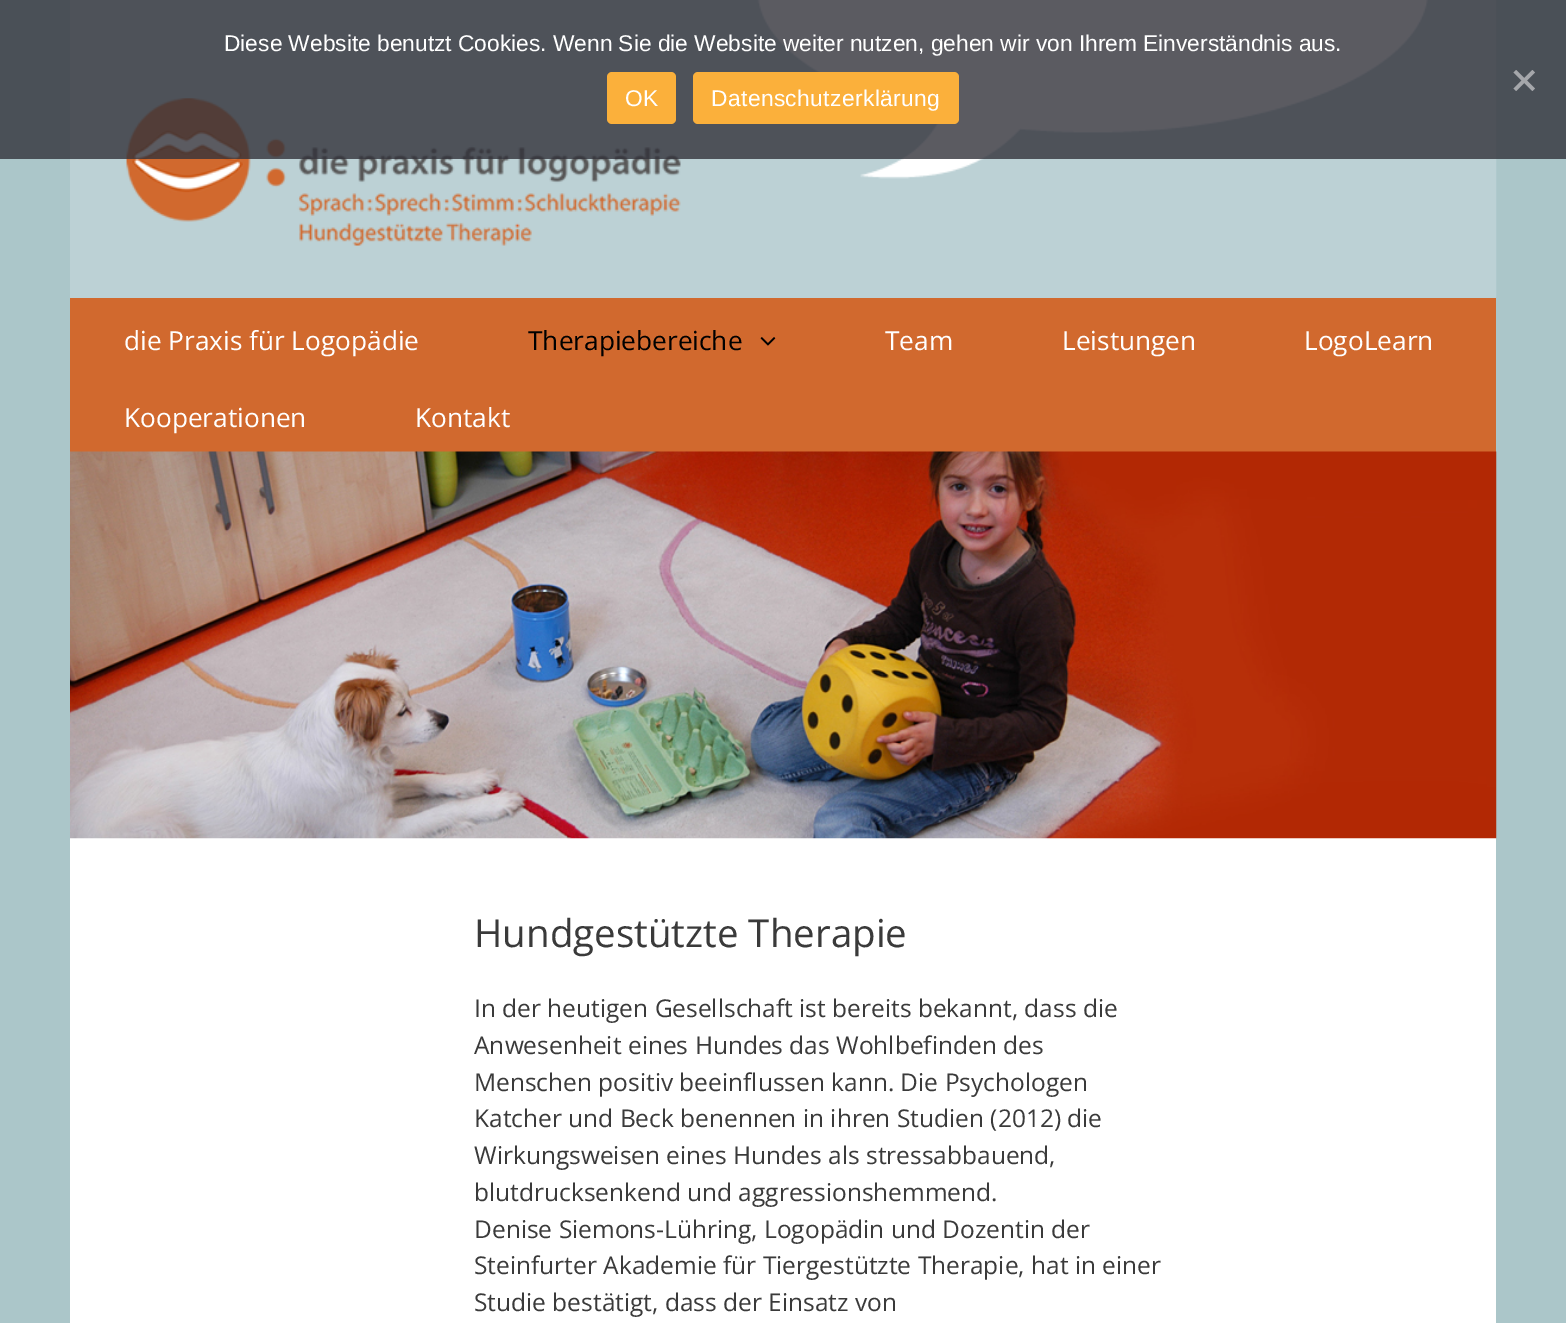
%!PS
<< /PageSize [1566 1323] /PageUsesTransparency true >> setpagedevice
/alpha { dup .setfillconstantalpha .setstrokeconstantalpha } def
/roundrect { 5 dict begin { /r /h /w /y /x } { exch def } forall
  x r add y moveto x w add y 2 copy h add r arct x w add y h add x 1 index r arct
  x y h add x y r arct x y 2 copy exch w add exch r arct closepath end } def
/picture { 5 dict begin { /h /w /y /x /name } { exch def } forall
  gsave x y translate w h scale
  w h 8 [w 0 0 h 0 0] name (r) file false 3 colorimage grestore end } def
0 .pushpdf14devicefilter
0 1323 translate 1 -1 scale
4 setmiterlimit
0.737 0.82 0.835 setrgbcolor
0 0 1566 1323 rectfill
0.671 0.776 0.788 setrgbcolor
1496 0 70 1323 rectfill
(img1.rgb) 126 0 1371 297 picture
0 0 70 1323 rectfill
0.8 alpha
0.196 0.196 0.227 setrgbcolor
0 0 1566 159 rectfill
/LiberationSans-Regular [22.75 0 0 -22.75 0 0] selectfont
1 alpha
1 setgray
224 51 moveto (Diese Website benutzt Cookies. Wenn Sie die Website weiter nutzen, gehen wir von Ihrem Einverständnis aus.) show
0.647 0.655 0.671 setrgbcolor
newpath 1532.5 70 moveto 1535 72.5 lineto 1516 91 lineto 1513.5 88.5 lineto closepath fill
newpath 1513.5 72.5 moveto 1516 70 lineto 1535 88.5 lineto 1532.5 91 lineto closepath fill
0.984 0.69 0.231 setrgbcolor
607 72 69 52 5 roundrect fill
1 setgray
625 106 moveto 0.4 0 (OK) ashow
0.984 0.69 0.231 setrgbcolor
693 72 266 52 5 roundrect fill
1 setgray
711 106 moveto 0.4 0 (Datenschutzerklärung) ashow
0.82 0.412 0.18 setrgbcolor
70 298 1426 154 rectfill
/OpenSans-Regular [26.25 0 0 -26.25 0 0] selectfont
1 setgray
124 350 moveto (die Praxis für Logopädie) show
0 setgray
528 350 moveto (Therapiebereiche) show
(img2.rgb) 760 337 16 9 picture
1 setgray
885 350 moveto (Team) show
1062 350 moveto (Leistungen) show
1304 350 moveto (LogoLearn) show
124 427 moveto (Kooperationen) show
415 427 moveto (Kontakt) show
70 838 1426 485 rectfill
(img3.rgb) 70 451 1427 388 picture
/OpenSans-Regular [38.5 0 0 -38.5 0 0] selectfont
0.227 setgray
474 947 moveto (Hundgestützte Therapie) show
/OpenSans-Regular [24.5 0 0 -24.5 0 0] selectfont
474 1017 moveto (In der heutigen Gesellschaft ist bereits bekannt, dass die) show
474 1054 moveto (Anwesenheit eines Hundes das Wohlbefinden des) show
474 1091 moveto (Menschen positiv beeinflussen kann. Die Psychologen) show
474 1127 moveto (Katcher und Beck benennen in ihren Studien \(2012\) die) show
474 1164 moveto (Wirkungsweisen eines Hundes als stressabbauend,) show
474 1201 moveto (blutdrucksenkend und aggressionshemmend.) show
474 1238 moveto (Denise Siemons-Lühring, Logopädin und Dozentin der) show
474 1274 moveto (Steinfurter Akademie für Tiergestützte Therapie, hat in einer) show
474 1311 moveto (Studie bestätigt, dass der Einsatz von) show
.poppdf14devicefilter showpage
